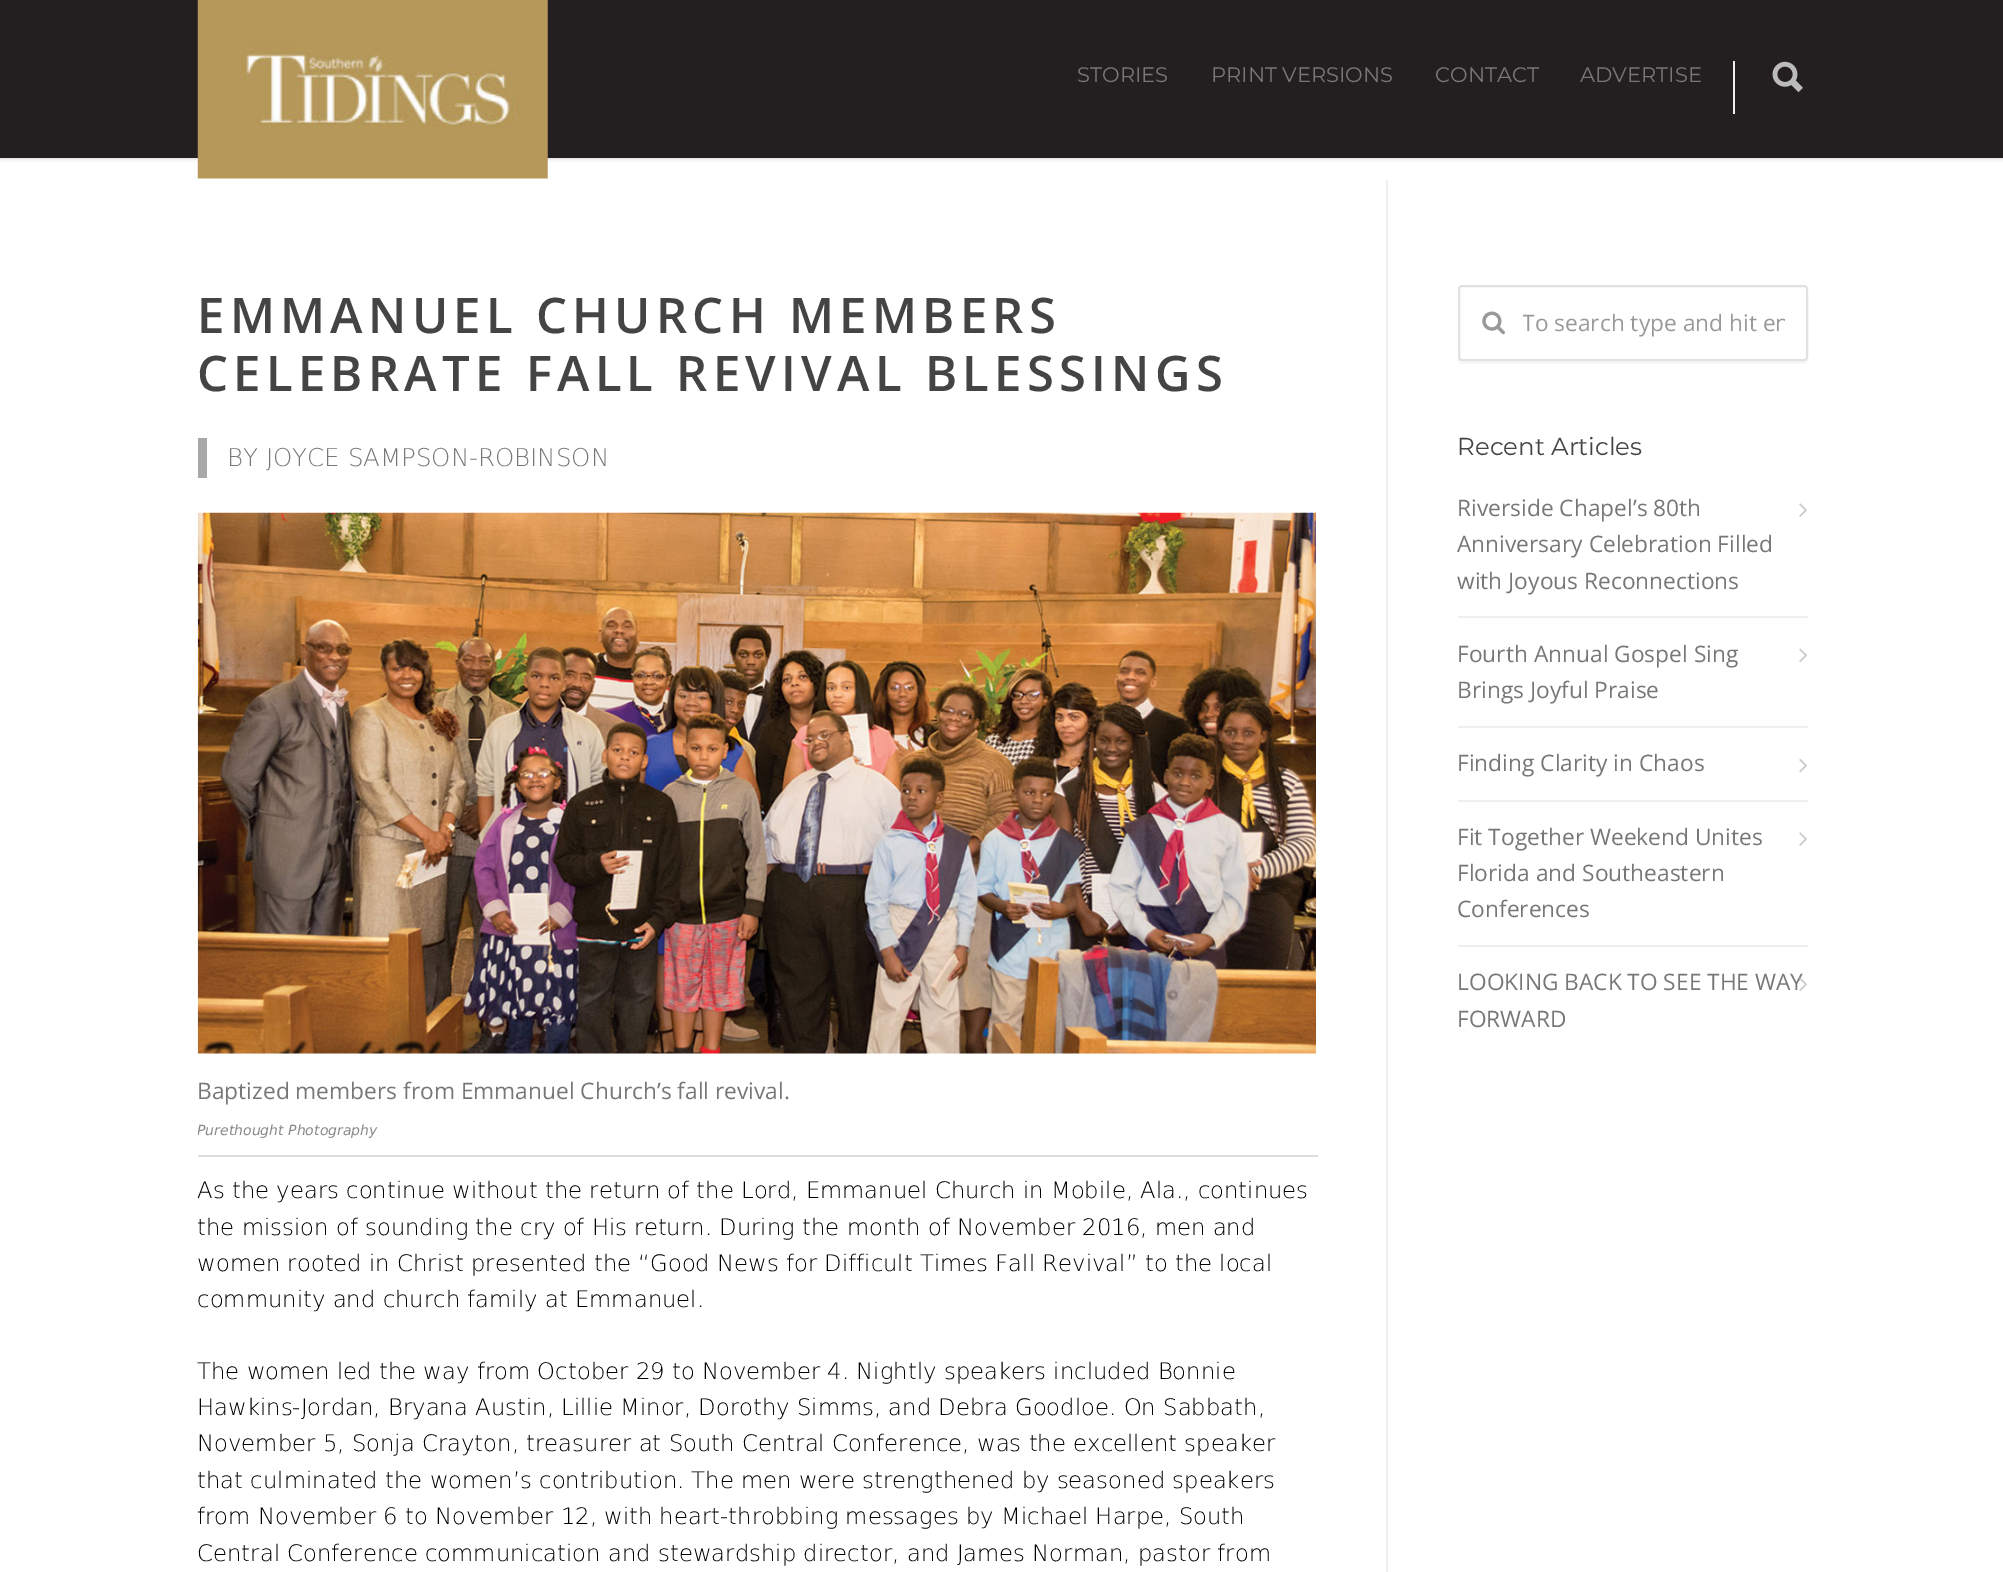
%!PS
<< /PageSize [2003 1572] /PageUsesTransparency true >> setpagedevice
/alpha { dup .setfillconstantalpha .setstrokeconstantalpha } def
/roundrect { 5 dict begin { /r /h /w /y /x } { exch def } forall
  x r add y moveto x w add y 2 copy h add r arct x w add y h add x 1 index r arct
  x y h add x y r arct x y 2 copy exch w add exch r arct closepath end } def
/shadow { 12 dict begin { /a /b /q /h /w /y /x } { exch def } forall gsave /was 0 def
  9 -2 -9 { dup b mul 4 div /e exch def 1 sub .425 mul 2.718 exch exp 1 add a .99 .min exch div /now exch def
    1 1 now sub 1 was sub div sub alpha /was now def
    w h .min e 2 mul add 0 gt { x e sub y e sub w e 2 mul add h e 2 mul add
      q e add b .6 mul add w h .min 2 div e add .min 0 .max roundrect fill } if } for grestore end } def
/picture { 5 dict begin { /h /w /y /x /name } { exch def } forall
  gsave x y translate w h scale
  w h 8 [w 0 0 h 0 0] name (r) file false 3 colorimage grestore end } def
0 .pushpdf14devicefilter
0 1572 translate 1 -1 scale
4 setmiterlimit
1 setgray
0 0 2003 1572 rectfill
0 setgray
-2 -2 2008 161 0 2 0.16 shadow
0.137 0.122 0.125 setrgbcolor
0 0 2003 158 rectfill
(img1.rgb) 197 0 351 179 picture
/Montserrat-Regular [21 0 0 -21 0 0] selectfont
0.467 setgray
1077 82 moveto (STORIES) show
1211 82 moveto (PRINT VERSIONS) show
1435 82 moveto (CONTACT) show
1580 82 moveto (ADVERTISE) show
0.937 setgray
1733 61 2 53 rectfill
(img2.rgb) 1772 61 31 31 picture
1386 180 2 1392 rectfill
/OpenSans-SemiBold [49 0 0 -49 0 0] selectfont
0.267 setgray
197 333 moveto 5.25 0 (EMMANUEL CHURCH MEMBERS) ashow
197 391 moveto 5.25 0 (CELEBRATE FALL REVIVAL BLESSINGS) ashow
0.659 setgray
198 438 9 40 rectfill
/DejaVuSans-ExtraLight [24.5 0 0 -24.5 0 0] selectfont
0.467 setgray
227 466 moveto (BY JOYCE SAMPSON-ROBINSON) show
0.867 setgray
198 1155 1120 2 rectfill
(img3.rgb) 197 512 1119 542 picture
/OpenSans-Regular [22.75 0 0 -22.75 0 0] selectfont
0.467 setgray
197 1099 moveto (Baptized members from Emmanuel Church’s fall revival.) show
gsave
198 285 1120 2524 rectclip
/DejaVuSans-Italic [14 0 0 -14 0 0] selectfont
0.533 setgray
197 1135 moveto (Purethought Photography) show
grestore
/DejaVuSans-ExtraLight [22.75 0 0 -22.75 0 0] selectfont
0 setgray
197 1198 moveto (As the years continue without the return of the Lord, Emmanuel Church in Mobile, Ala., continues) show
197 1235 moveto (the mission of sounding the cry of His return. During the month of November 2016, men and) show
197 1271 moveto (women rooted in Christ presented the “Good News for Difficult Times Fall Revival” to the local) show
197 1307 moveto (community and church family at Emmanuel.) show
197 1379 moveto (The women led the way from October 29 to November 4. Nightly speakers included Bonnie) show
197 1415 moveto (Hawkins-Jordan, Bryana Austin, Lillie Minor, Dorothy Simms, and Debra Goodloe. On Sabbath,) show
197 1451 moveto (November 5, Sonja Crayton, treasurer at South Central Conference, was the excellent speaker) show
197 1488 moveto (that culminated the women’s contribution. The men were strengthened by seasoned speakers) show
197 1524 moveto (from November 6 to November 12, with heart-throbbing messages by Michael Harpe, South) show
197 1561 moveto (Central Conference communication and stewardship director, and James Norman, pastor from) show
0.969 setgray
newpath 1458 358 moveto 1458 360 lineto 1458 362 1460 364 1462 364 curveto 1804 364 lineto 1806 364 1808 362 1808 360 curveto 1808 292 lineto 1808 357 lineto 1808 359 1806 360 1804 360 curveto 1461 360 lineto 1460 360 1459 360 1458 358 curveto closepath fill
1 setgray
1459 286 348 74 3 roundrect gsave fill grestore
0.882 setgray
2 setlinewidth
stroke
(img4.rgb) 1482 311 23 24 picture
gsave
1523 305 262 36 rectclip
/OpenSans-Regular [22.75 0 0 -22.75 0 0] selectfont
0.6 setgray
1522 331 moveto (To search type and hit en) show
grestore
/Montserrat-Regular [24.5 0 0 -24.5 0 0] selectfont
0.267 setgray
1457 455 moveto (Recent Articles) show
0.937 setgray
1458 616 350 2 rectfill
/OpenSans-Regular [22.75 0 0 -22.75 0 0] selectfont
0.467 setgray
1457 516 moveto (Riverside Chapel’s 80th) show
1457 552 moveto (Anniversary Celebration Filled) show
1457 589 moveto (with Joyous Reconnections) show
(img5.rgb) 1799 503 8 14 picture
0.937 setgray
1458 726 350 2 rectfill
0.467 setgray
1457 662 moveto (Fourth Annual Gospel Sing) show
1457 698 moveto (Brings Joyful Praise) show
(img6.rgb) 1799 648 8 15 picture
0.937 setgray
1458 800 350 2 rectfill
0.467 setgray
1457 771 moveto (Finding Clarity in Chaos) show
(img7.rgb) 1799 758 8 15 picture
0.937 setgray
1458 945 350 2 rectfill
0.467 setgray
1457 845 moveto (Fit Together Weekend Unites) show
1457 881 moveto (Florida and Southeastern) show
1457 917 moveto (Conferences) show
(img5.rgb) 1799 832 8 14 picture
1457 990 moveto (LOOKING BACK TO SEE THE WAY) show
1457 1027 moveto (FORWARD) show
(img8.rgb) 1799 977 8 15 picture
.poppdf14devicefilter showpage
